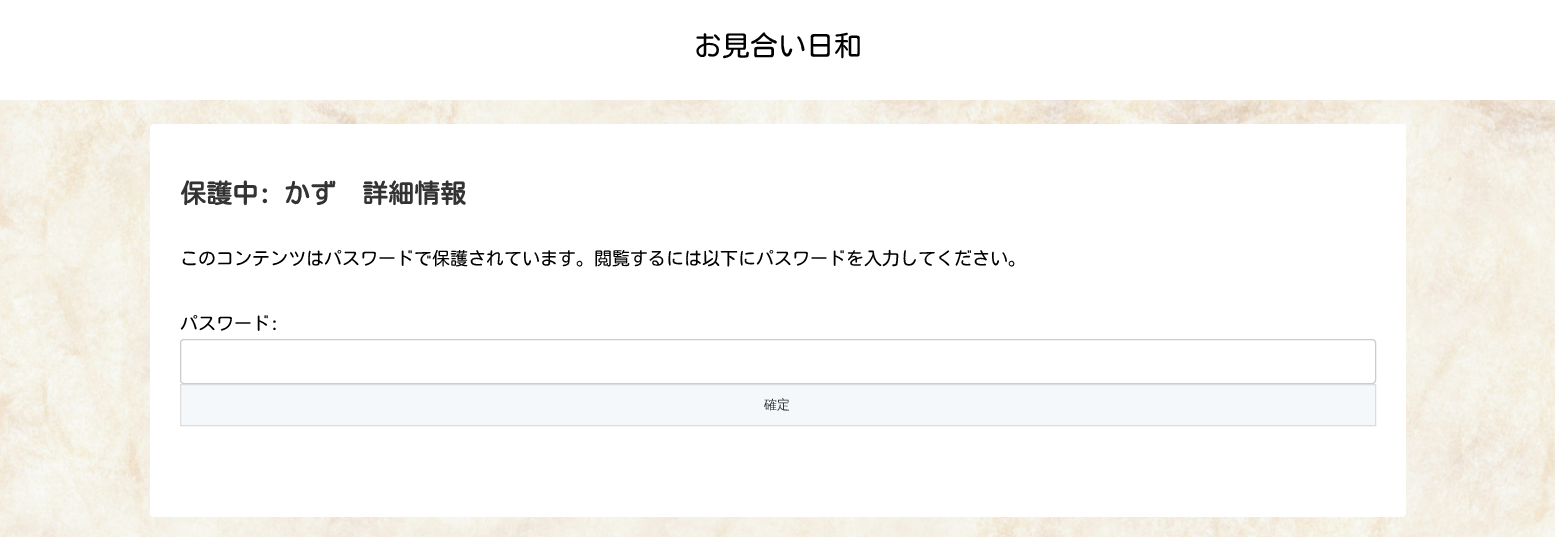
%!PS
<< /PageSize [1555 552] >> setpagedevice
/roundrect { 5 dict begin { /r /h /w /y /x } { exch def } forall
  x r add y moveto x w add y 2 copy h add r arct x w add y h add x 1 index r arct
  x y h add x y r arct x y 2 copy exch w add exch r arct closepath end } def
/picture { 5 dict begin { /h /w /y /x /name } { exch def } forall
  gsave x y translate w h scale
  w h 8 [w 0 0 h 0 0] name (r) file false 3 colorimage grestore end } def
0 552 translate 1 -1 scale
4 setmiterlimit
1 setgray
0 0 1555 552 rectfill
(img1.rgb) 0 100 1555 437 picture
/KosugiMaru-Regular [28 0 0 -28 0 0] selectfont
0 setgray
694 56 moveto (お見合い日和) show
1 setgray
150 124 1256 393 4 roundrect fill
/KosugiMaru-Bold [26 0 0 -26 0 0] selectfont
0.2 setgray
180 203 moveto (保護中: かず　詳細情報) show
/KosugiMaru-Regular [18 0 0 -18 0 0] selectfont
0 setgray
180 265 moveto (このコンテンツはパスワードで保護されています。閲覧するには以下にパスワードを入力してください。) show
180 330 moveto (パスワード:) show
0.8 setgray
180.5 339.5 1195 44 3.5 roundrect stroke
0.961 0.973 0.98 setrgbcolor
newpath 180.5 384.5 moveto 1375.5 384.5 lineto 1375.5 425.5 lineto 180.5 425.5 lineto closepath gsave fill grestore
0.867 setgray
stroke
/WenQuanYiZenHei-Medium [13 0 0 -13 0 0] selectfont
0.2 setgray
764 409 moveto (確定) show
showpage
